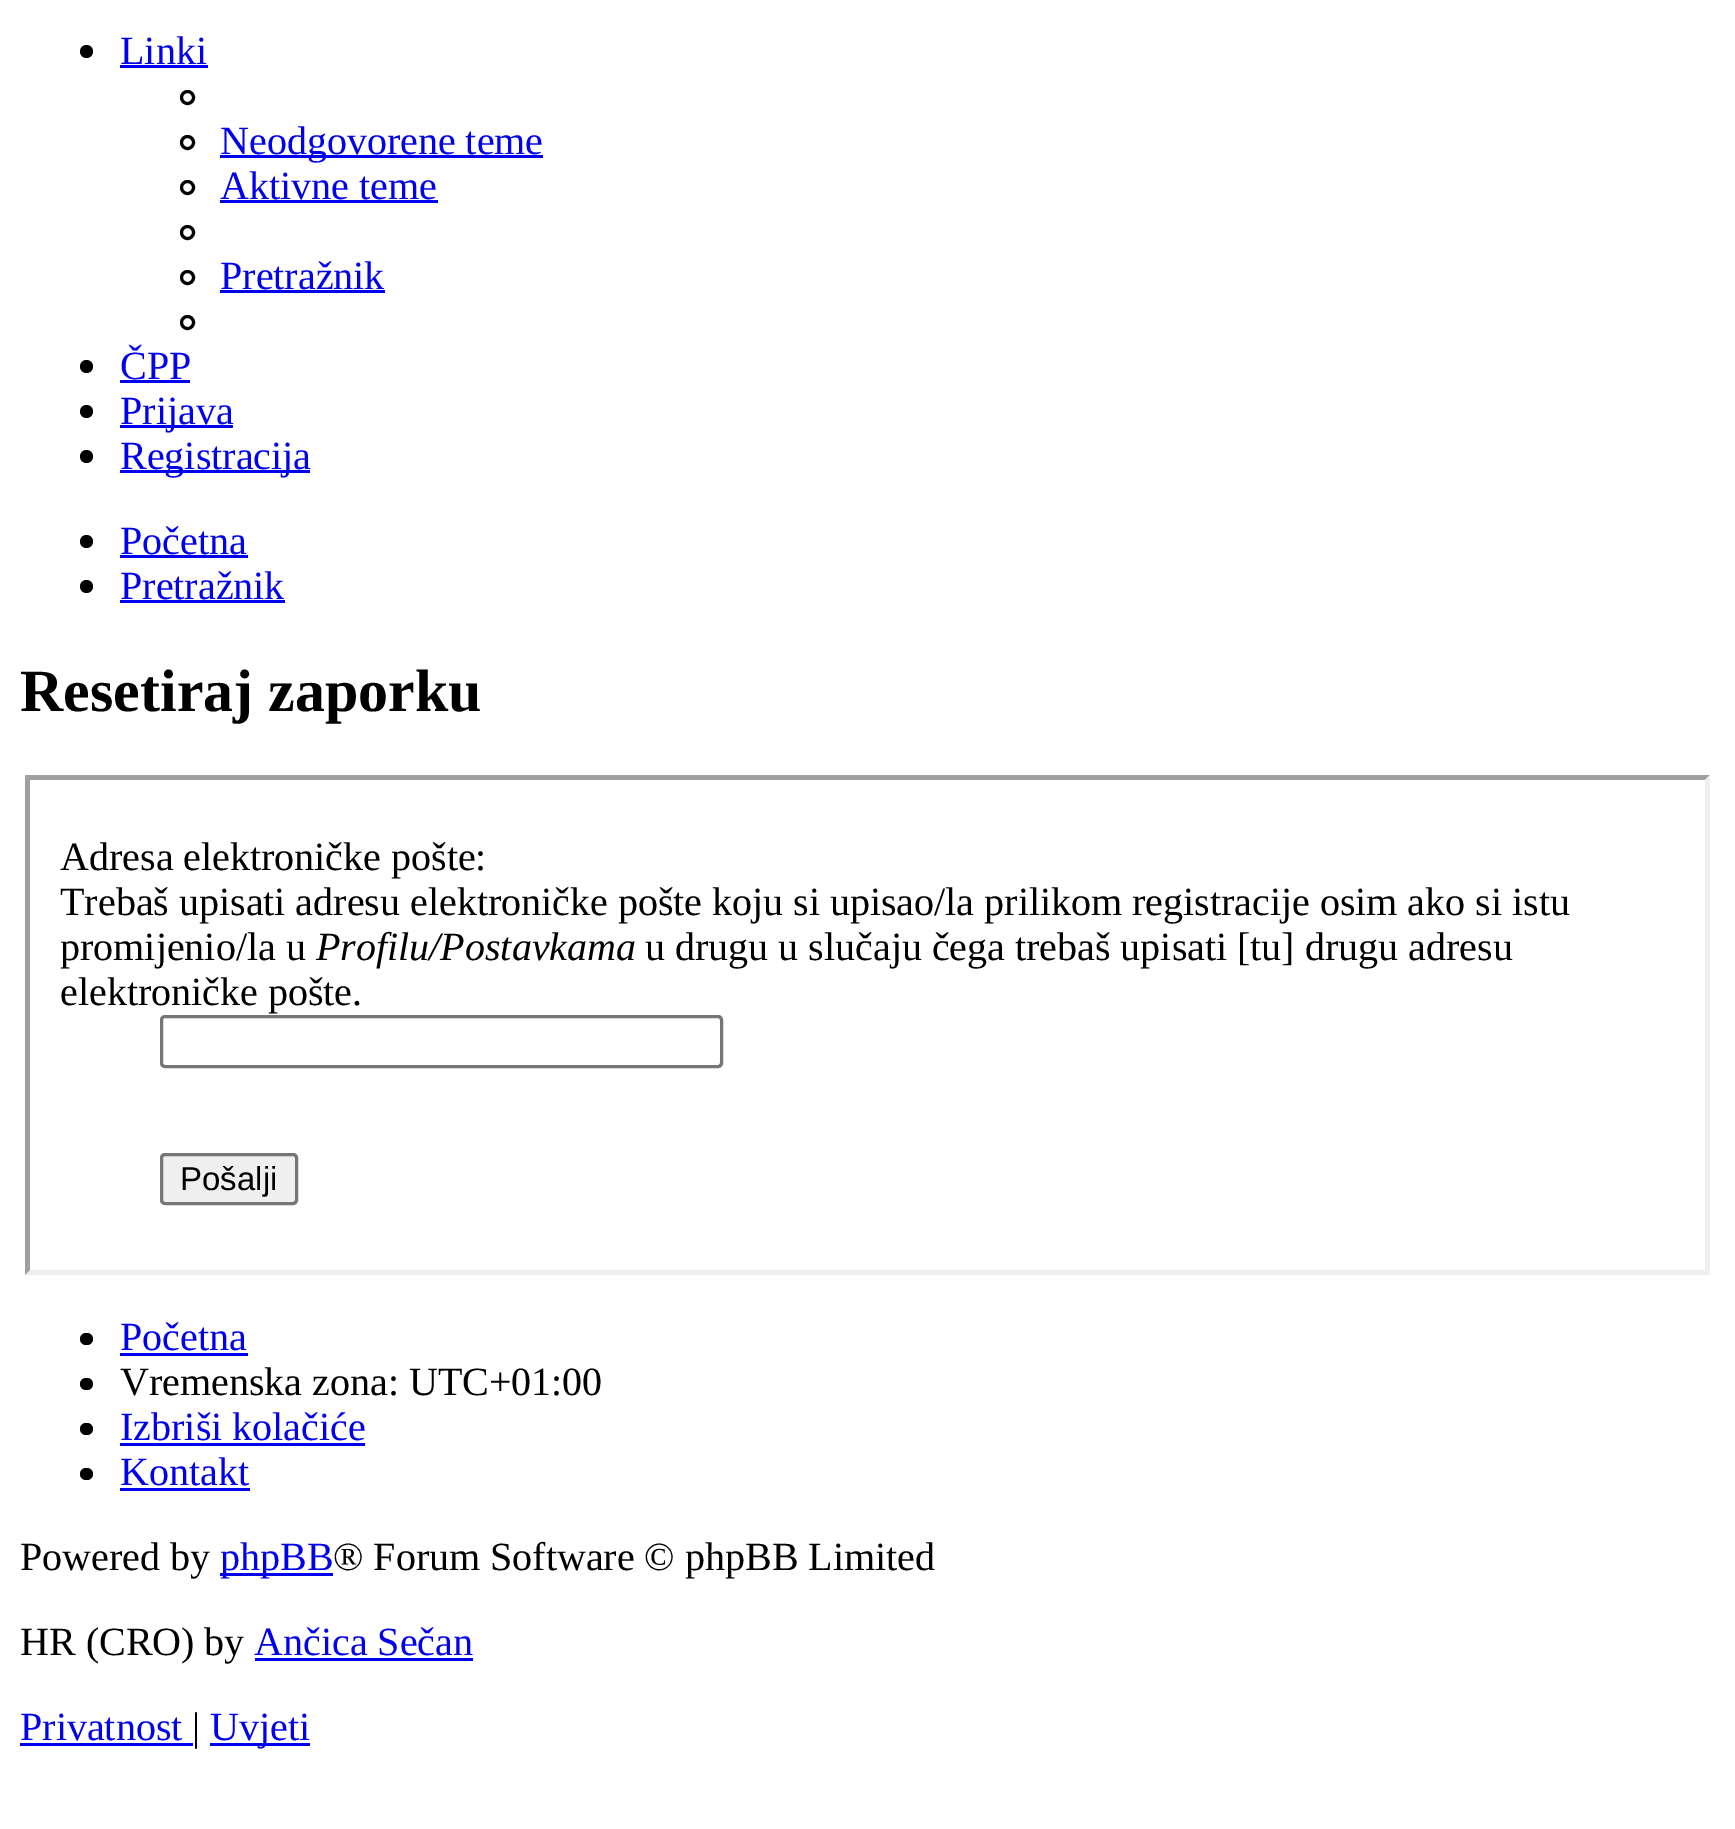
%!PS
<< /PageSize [1735 1829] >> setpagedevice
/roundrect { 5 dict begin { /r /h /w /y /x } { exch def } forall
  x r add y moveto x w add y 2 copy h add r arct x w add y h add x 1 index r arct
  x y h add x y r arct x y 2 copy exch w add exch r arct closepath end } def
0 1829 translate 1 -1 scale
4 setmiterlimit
1 setgray
0 0 1735 1829 rectfill
0 setgray
newpath 86.5 51.5 6.5 0 360 arc closepath fill
/LiberationSerif-Regular [40 0 0 -40 0 0] selectfont
0 0 0.933 setrgbcolor
120 64 moveto (Linki) show
120 65 88 3 rectfill
0 setgray
3 setlinewidth
newpath 187.5 97.5 6 0 360 arc closepath stroke
newpath 187.5 142.5 6 0 360 arc closepath stroke
0 0 0.933 setrgbcolor
220 155 323 3 rectfill
220 154 moveto (Neodgovorene teme) show
0 setgray
newpath 187.5 187.5 6 0 360 arc closepath stroke
0 0 0.933 setrgbcolor
220 199 moveto (Aktivne teme) show
220 200 218 3 rectfill
0 setgray
newpath 187.5 232.5 6 0 360 arc closepath stroke
newpath 187.5 277.5 6 0 360 arc closepath stroke
0 0 0.933 setrgbcolor
220 289 moveto (Pretražnik) show
220 290 165 3 rectfill
0 setgray
newpath 187.5 322.5 6 0 360 arc closepath stroke
newpath 86.5 366.5 6.5 0 360 arc closepath fill
0 0 0.933 setrgbcolor
120 379 moveto (ČPP) show
120 380 70 3 rectfill
0 setgray
newpath 86.5 411.5 6.5 0 360 arc closepath fill
0 0 0.933 setrgbcolor
120 425 113 3 rectfill
120 424 moveto (Prijava) show
0 setgray
newpath 86.5 456.5 6.5 0 360 arc closepath fill
0 0 0.933 setrgbcolor
120 470 190 3 rectfill
120 469 moveto (Registracija) show
0 setgray
newpath 86.5 541.5 6.5 0 360 arc closepath fill
0 0 0.933 setrgbcolor
120 554 moveto (Početna) show
120 555 128 3 rectfill
0 setgray
newpath 86.5 586.5 6.5 0 360 arc closepath fill
0 0 0.933 setrgbcolor
120 599 moveto (Pretražnik) show
120 600 165 3 rectfill
/LiberationSerif-Bold [60 0 0 -60 0 0] selectfont
0 setgray
20 711 moveto (Resetiraj zaporku) show
0.624 setgray
newpath 25 775 moveto 1710 775 lineto 1705 780 lineto 30 780 lineto closepath fill
0.937 setgray
newpath 1710 775 moveto 1710 1275 lineto 1705 1270 lineto 1705 780 lineto closepath fill
newpath 1710 1275 moveto 25 1275 lineto 30 1270 lineto 1705 1270 lineto closepath fill
0.624 setgray
newpath 25 1275 moveto 25 775 lineto 30 780 lineto 30 1270 lineto closepath fill
/LiberationSerif-Regular [40 0 0 -40 0 0] selectfont
0 setgray
60 870 moveto (Adresa elektroničke pošte:) show
60 915 moveto (Trebaš upisati adresu elektroničke pošte koju si upisao/la prilikom registracije osim ako si istu) show
60 960 moveto (promijenio/la u) show
/LiberationSerif-Italic [40 0 0 -40 0 0] selectfont
316 960 moveto (Profilu/Postavkama) show
/LiberationSerif-Regular [40 0 0 -40 0 0] selectfont
645 960 moveto (u drugu u slučaju čega trebaš upisati [tu] drugu adresu) show
60 1005 moveto (elektroničke pošte.) show
0.463 setgray
161.5 1016.5 560 50 3.5 roundrect stroke
0.937 setgray
161.5 1154.5 135 49 3.5 roundrect gsave fill grestore
0.463 setgray
stroke
/LiberationSans-Regular [33 0 0 -33 0 0] selectfont
0 setgray
180 1190 moveto (Pošalji) show
80 1333 13 12 6 roundrect fill
/LiberationSerif-Regular [40 0 0 -40 0 0] selectfont
0 0 0.933 setrgbcolor
120 1350 moveto (Početna) show
120 1353 128 3 rectfill
0 setgray
80 1378 13 12 6 roundrect fill
120 1395 moveto (Vremenska zona: UTC+01:00) show
80 1423 13 12 6 roundrect fill
0 0 0.933 setrgbcolor
120 1440 moveto (Izbriši kolačiće) show
120 1443 245 3 rectfill
0 setgray
80 1468 13 12 6 roundrect fill
0 0 0.933 setrgbcolor
120 1485 moveto (Kontakt) show
120 1488 130 3 rectfill
0 setgray
20 1570 moveto (Powered by) show
0 0 0.933 setrgbcolor
220 1573 113 3 rectfill
220 1570 moveto (phpBB) show
0 setgray
333 1570 moveto (® Forum Software © phpBB Limited) show
20 1655 moveto (HR \(CRO\) by) show
0 0 0.933 setrgbcolor
254 1655 moveto (Ančica Sečan) show
255 1658 218 3 rectfill
20 1740 moveto (Privatnost) show
20 1743 173 3 rectfill
0 setgray
192 1740 moveto (|) show
0 0 0.933 setrgbcolor
210 1743 100 3 rectfill
210 1740 moveto (Uvjeti) show
showpage
